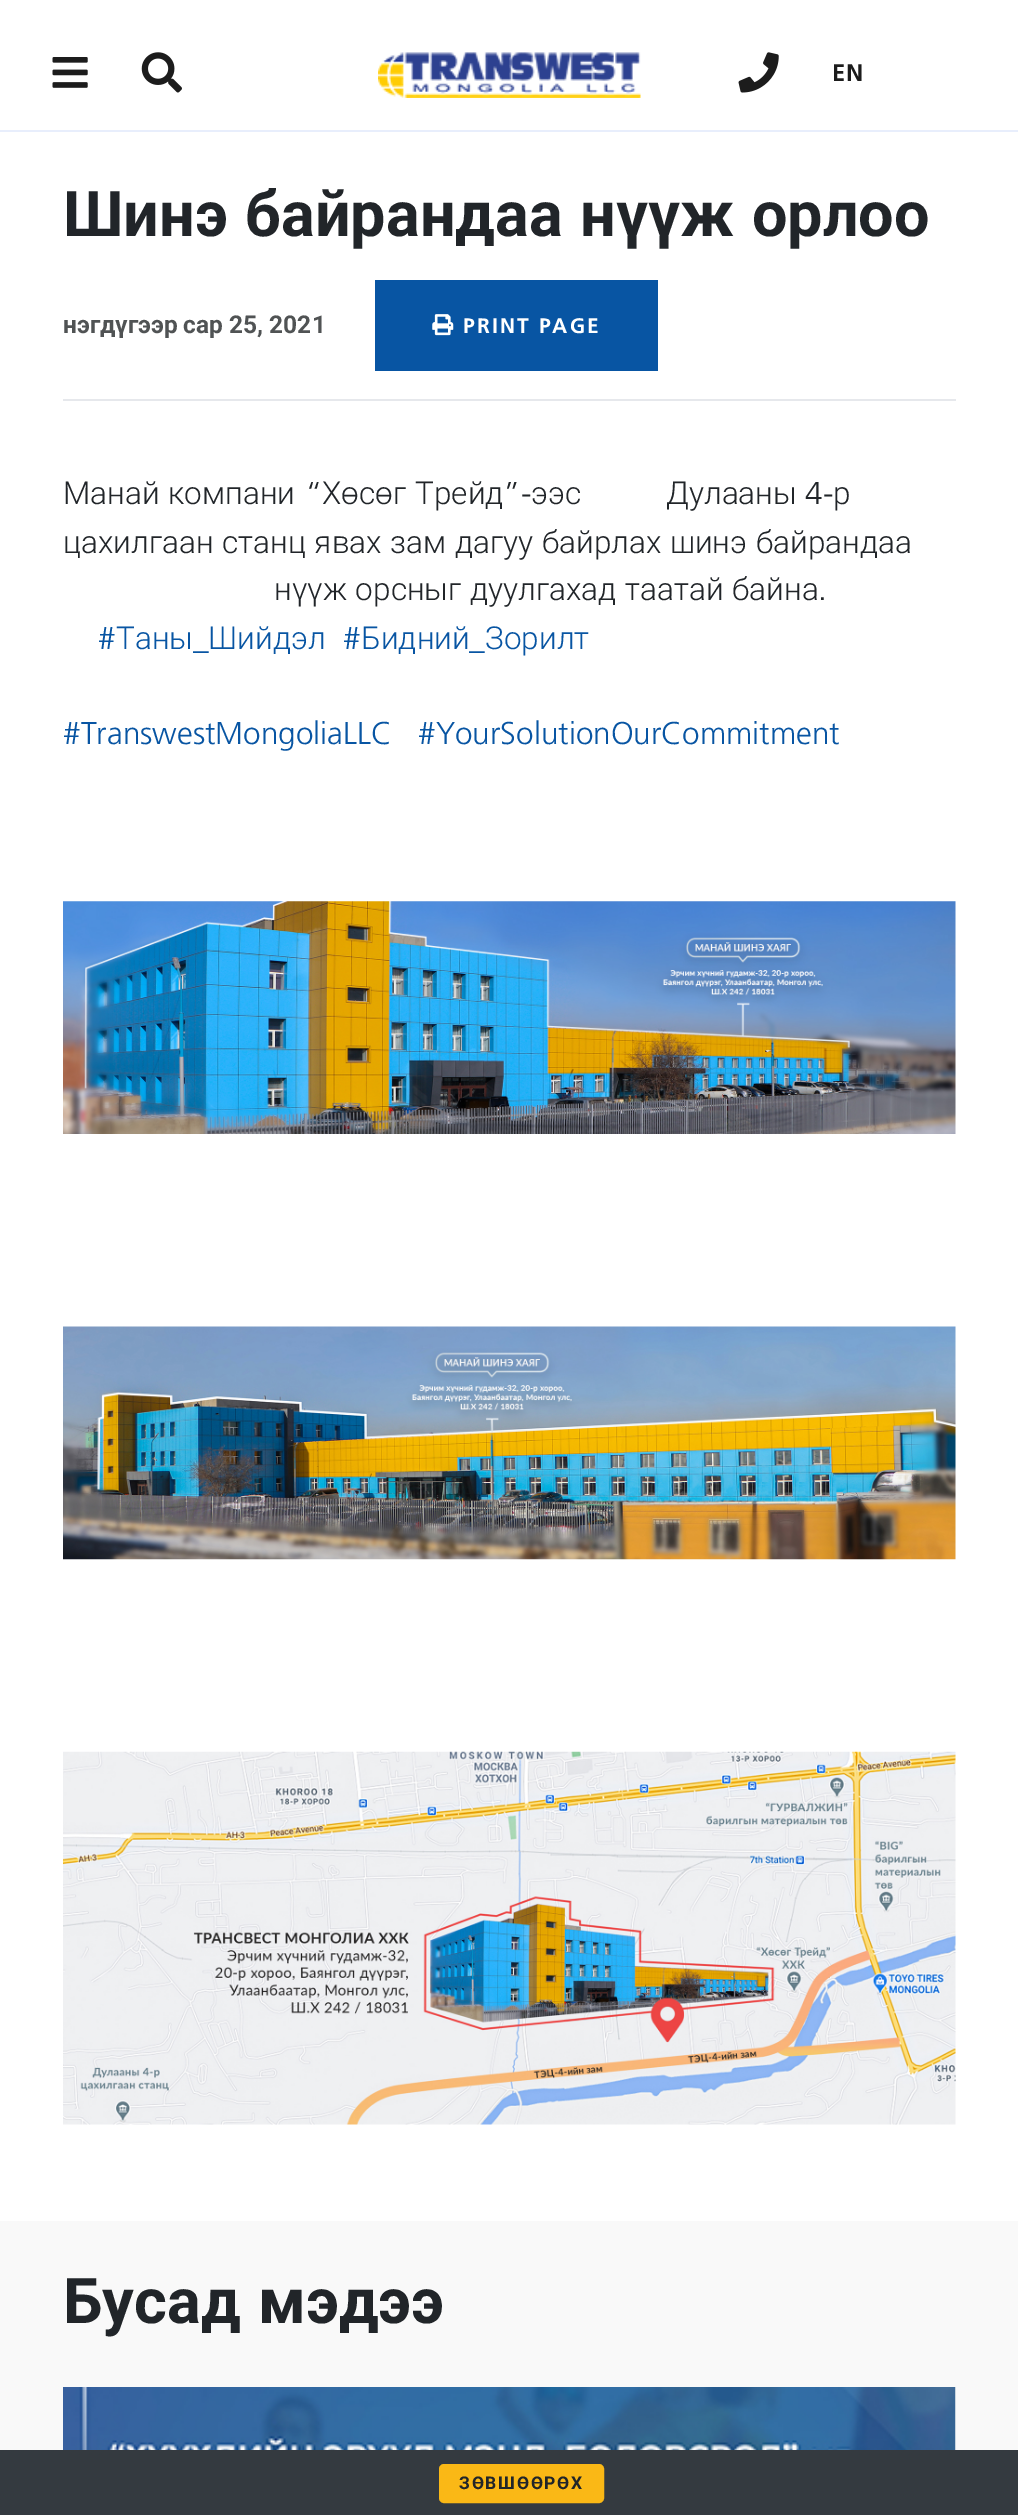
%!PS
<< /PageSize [1018 2515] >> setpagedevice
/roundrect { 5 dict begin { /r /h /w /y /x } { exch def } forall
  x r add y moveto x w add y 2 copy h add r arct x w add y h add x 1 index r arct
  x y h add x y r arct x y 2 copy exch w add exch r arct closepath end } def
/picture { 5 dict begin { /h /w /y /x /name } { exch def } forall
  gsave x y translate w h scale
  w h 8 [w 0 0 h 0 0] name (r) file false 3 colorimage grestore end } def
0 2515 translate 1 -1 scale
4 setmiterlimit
1 setgray
0 0 1018 2515 rectfill
0.91 0.933 0.988 setrgbcolor
0 130 1018 2 rectfill
(img1.rgb) 52 57 36 31 picture
(img2.rgb) 141 52 41 41 picture
(img3.rgb) 378 52 263 46 picture
(img4.rgb) 738 52 41 41 picture
/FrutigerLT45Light-Bold [24 0 0 -24 0 0] selectfont
0.11 setgray
832 81 moveto 1 0 (EN) ashow
/Roboto-Bold [63 0 0 -63 0 0] selectfont
0.129 0.145 0.161 setrgbcolor
63 236 moveto 2 0 32 (Шинэ байрандаа нүүж орлоо) widthshow
0.902 0.91 0.925 setrgbcolor
63 399 893 2 rectfill
/Roboto-Bold [24.5 0 0 -24.5 0 0] selectfont
0.314 0.325 0.329 setrgbcolor
63 333 moveto (нэгдүгээр сар 25, 2021) show
0.031 0.333 0.639 setrgbcolor
375 280 283 91 rectfill
(img5.rgb) 432 314 22 22 picture
/FrutigerLT45Light-Bold [21 0 0 -21 0 0] selectfont
1 setgray
463 333 moveto 2.1 0 (PRINT PAGE) ashow
/Roboto-Light [31.5 0 0 -31.5 0 0] selectfont
0.129 0.145 0.161 setrgbcolor
63 504 moveto 1 0 32 (Манай компани) widthshow
/FrutigerLT45Light-Light [31.5 0 0 -31.5 0 0] selectfont
305 504 moveto (“) show
/Roboto-Light [31.5 0 0 -31.5 0 0] selectfont
322 504 moveto 1 0 32 (Хөсөг Трейд) widthshow
/FrutigerLT45Light-Light [31.5 0 0 -31.5 0 0] selectfont
503 504 moveto (”-) show
/Roboto-Light [31.5 0 0 -31.5 0 0] selectfont
531 504 moveto (ээс) show
666 504 moveto (Дулааны) show
/FrutigerLT45Light-Light [31.5 0 0 -31.5 0 0] selectfont
805 504 moveto (4-) show
/Roboto-Light [31.5 0 0 -31.5 0 0] selectfont
833 504 moveto (р) show
63 553 moveto 1 0 32 (цахилгаан станц явах зам дагуу байрлах шинэ байрандаа) widthshow
274 600 moveto 1 0 32 (нүүж орсныг дуулгахад таатай байна) widthshow
/FrutigerLT45Light-Light [31.5 0 0 -31.5 0 0] selectfont
818 600 moveto (.) show
0.031 0.333 0.639 setrgbcolor
98 649 moveto (#) show
/Roboto-Light [31.5 0 0 -31.5 0 0] selectfont
116 649 moveto (Таны) show
208 649 moveto (Шийдэл) show
/FrutigerLT45Light-Light [31.5 0 0 -31.5 0 0] selectfont
343 649 moveto (#) show
/Roboto-Light [31.5 0 0 -31.5 0 0] selectfont
361 649 moveto (Бидний) show
485 649 moveto (Зорилт) show
/FrutigerLT45Light-Light [31.5 0 0 -31.5 0 0] selectfont
193 649 moveto (_) show
469 649 moveto (_) show
63 744 moveto (#TranswestMongoliaLLC) show
418 744 moveto (#YourSolutionOurCommitment) show
(img6.rgb) 63 901 893 233 picture
(img7.rgb) 63 1326 893 234 picture
(img8.rgb) 63 1751 893 374 picture
0.976 setgray
0 2221 1018 229 rectfill
/Roboto-Bold [63 0 0 -63 0 0] selectfont
0.129 0.145 0.161 setrgbcolor
63 2323 moveto 2 0 32 (Бусад мэдээ) widthshow
(img9.rgb) 63 2387 893 63 picture
0.204 0.227 0.251 setrgbcolor
0 2450 1018 65 rectfill
0.98 0.722 0.086 setrgbcolor
440 2465 163 37 4 roundrect gsave fill grestore
2 setlinewidth
stroke
/Roboto-Bold [17.5 0 0 -17.5 0 0] selectfont
0.129 0.145 0.161 setrgbcolor
459 2489 moveto 1.75 0 (ЗӨВШӨӨРӨХ) ashow
showpage
